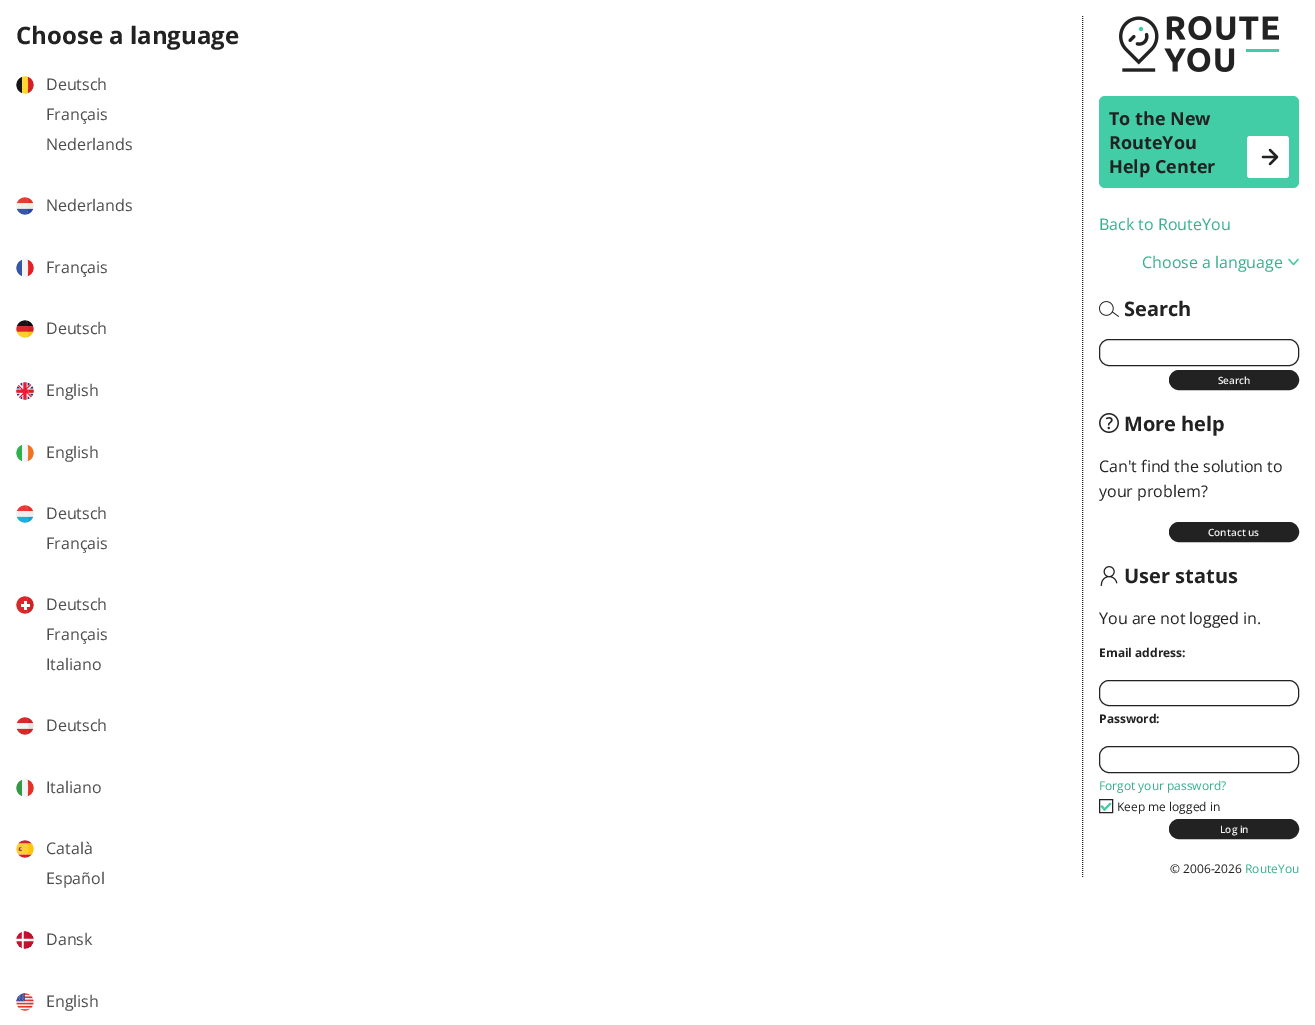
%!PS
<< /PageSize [1315 1025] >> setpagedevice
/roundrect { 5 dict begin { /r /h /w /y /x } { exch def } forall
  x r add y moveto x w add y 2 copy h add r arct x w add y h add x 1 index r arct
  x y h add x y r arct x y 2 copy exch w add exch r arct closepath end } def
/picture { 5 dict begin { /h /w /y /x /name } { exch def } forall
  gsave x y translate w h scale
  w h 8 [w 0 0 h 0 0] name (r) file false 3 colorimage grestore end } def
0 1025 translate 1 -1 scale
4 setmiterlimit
1 setgray
0 0 1315 1025 rectfill
/OpenSans-Bold [24 0 0 -24 0 0] selectfont
0.133 setgray
16 44 moveto (Choose a language) show
(img1.rgb) 16 76 18 18 picture
/OpenSans-Regular [16 0 0 -16 0 0] selectfont
0.302 setgray
46 90 moveto (Deutsch) show
46 120 moveto (Français) show
46 150 moveto (Nederlands) show
(img2.rgb) 16 197 18 18 picture
46 211 moveto (Nederlands) show
(img3.rgb) 16 259 18 18 picture
46 273 moveto (Français) show
(img4.rgb) 16 320 18 18 picture
46 334 moveto (Deutsch) show
(img5.rgb) 16 382 18 18 picture
46 396 moveto (English) show
(img6.rgb) 16 444 18 18 picture
46 458 moveto (English) show
(img7.rgb) 16 505 18 18 picture
46 519 moveto (Deutsch) show
46 549 moveto (Français) show
(img8.rgb) 16 596 18 18 picture
46 610 moveto (Deutsch) show
46 640 moveto (Français) show
46 670 moveto (Italiano) show
(img9.rgb) 16 717 18 18 picture
46 731 moveto (Deutsch) show
(img10.rgb) 16 779 18 18 picture
46 793 moveto (Italiano) show
(img11.rgb) 16 840 18 18 picture
46 854 moveto (Català) show
46 884 moveto (Español) show
(img12.rgb) 16 931 18 18 picture
46 945 moveto (Dansk) show
(img13.rgb) 16 993 18 18 picture
46 1007 moveto (English) show
0.133 setgray
[1 1] 0 setdash
newpath 1082.5 16 moveto 1082.5 878 lineto stroke
(img14.rgb) 1119 16 160 56 picture
0.259 0.804 0.655 setrgbcolor
1099 96 200 92 6 roundrect fill
/OpenSans-Bold [18 0 0 -18 0 0] selectfont
0.133 setgray
1109 125 moveto (To the New) show
1109 149 moveto (RouteYou) show
1 setgray
1247 136 42 42 3 roundrect fill
0.133 setgray
2.3 setlinewidth
1 setlinecap
1 setlinejoin
[] 0 setdash
newpath 1263 157 moveto 1277 157 lineto 1277 157 moveto 1270 150 lineto 1277 157 moveto 1270 164 lineto stroke
1109 173 moveto (Help Center) show
/OpenSans-Regular [16 0 0 -16 0 0] selectfont
0.22 0.682 0.557 setrgbcolor
1099 230 moveto (Back to RouteYou) show
1142 268 moveto (Choose a language) show
0.259 0.804 0.655 setrgbcolor
1.3 setlinewidth
newpath 1298 259.5 moveto 1293.5 264.5 lineto 1289 259.5 lineto stroke
(img15.rgb) 1099 301 20 16 picture
/OpenSans-Bold [20 0 0 -20 0 0] selectfont
0.133 setgray
1124 316 moveto (Search) show
1 setlinewidth
0 setlinecap
0 setlinejoin
1099.5 339.5 199 26 9.5 roundrect stroke
1169.5 370.5 129 19 9.5 roundrect gsave fill grestore
stroke
/OpenSans-SemiBold [10 0 0 -10 0 0] selectfont
0.949 setgray
1218 384 moveto (Search) show
(img16.rgb) 1099 413 20 20 picture
/OpenSans-Bold [20 0 0 -20 0 0] selectfont
0.133 setgray
1124 431 moveto (More help) show
/OpenSans-Regular [16 0 0 -16 0 0] selectfont
1099 472 moveto (Can't find the solution to) show
1099 497 moveto (your problem?) show
1169.5 522.5 129 19 9.5 roundrect gsave fill grestore
stroke
/OpenSans-SemiBold [10 0 0 -10 0 0] selectfont
0.949 setgray
1208 536 moveto (Contact us) show
(img17.rgb) 1100 566 18 20 picture
/OpenSans-Bold [20 0 0 -20 0 0] selectfont
0.133 setgray
1124 583 moveto (User status) show
/OpenSans-Regular [16 0 0 -16 0 0] selectfont
1099 624 moveto (You are not logged in.) show
/OpenSans-Bold [12 0 0 -12 0 0] selectfont
1099 657 moveto (Email address:) show
1099.5 680.5 199 25 9.5 roundrect stroke
1099 723 moveto (Password:) show
1099.5 746.5 199 26 9.5 roundrect stroke
/OpenSans-Regular [12 0 0 -12 0 0] selectfont
0.22 0.682 0.557 setrgbcolor
1099 790 moveto (Forgot your password?) show
0.133 setgray
1099.5 799.5 13 13 rectstroke
1117 811 moveto (Keep me logged in) show
0.259 0.804 0.655 setrgbcolor
newpath 1110 802.5 moveto 1111.5 804 lineto 1104.5 811 lineto 1103 809.5 lineto closepath fill
newpath 1102 805 moveto 1106 809.5 lineto 1104.5 811 lineto 1100.5 806.5 lineto closepath fill
0.133 setgray
1169.5 819.5 129 19 9.5 roundrect gsave fill grestore
stroke
/OpenSans-SemiBold [10 0 0 -10 0 0] selectfont
0.949 setgray
1220 833 moveto (Log in) show
/OpenSans-Regular [12 0 0 -12 0 0] selectfont
0.133 setgray
1170 873 moveto (© 2006-2026) show
0.22 0.682 0.557 setrgbcolor
1245 873 moveto (RouteYou) show
showpage
